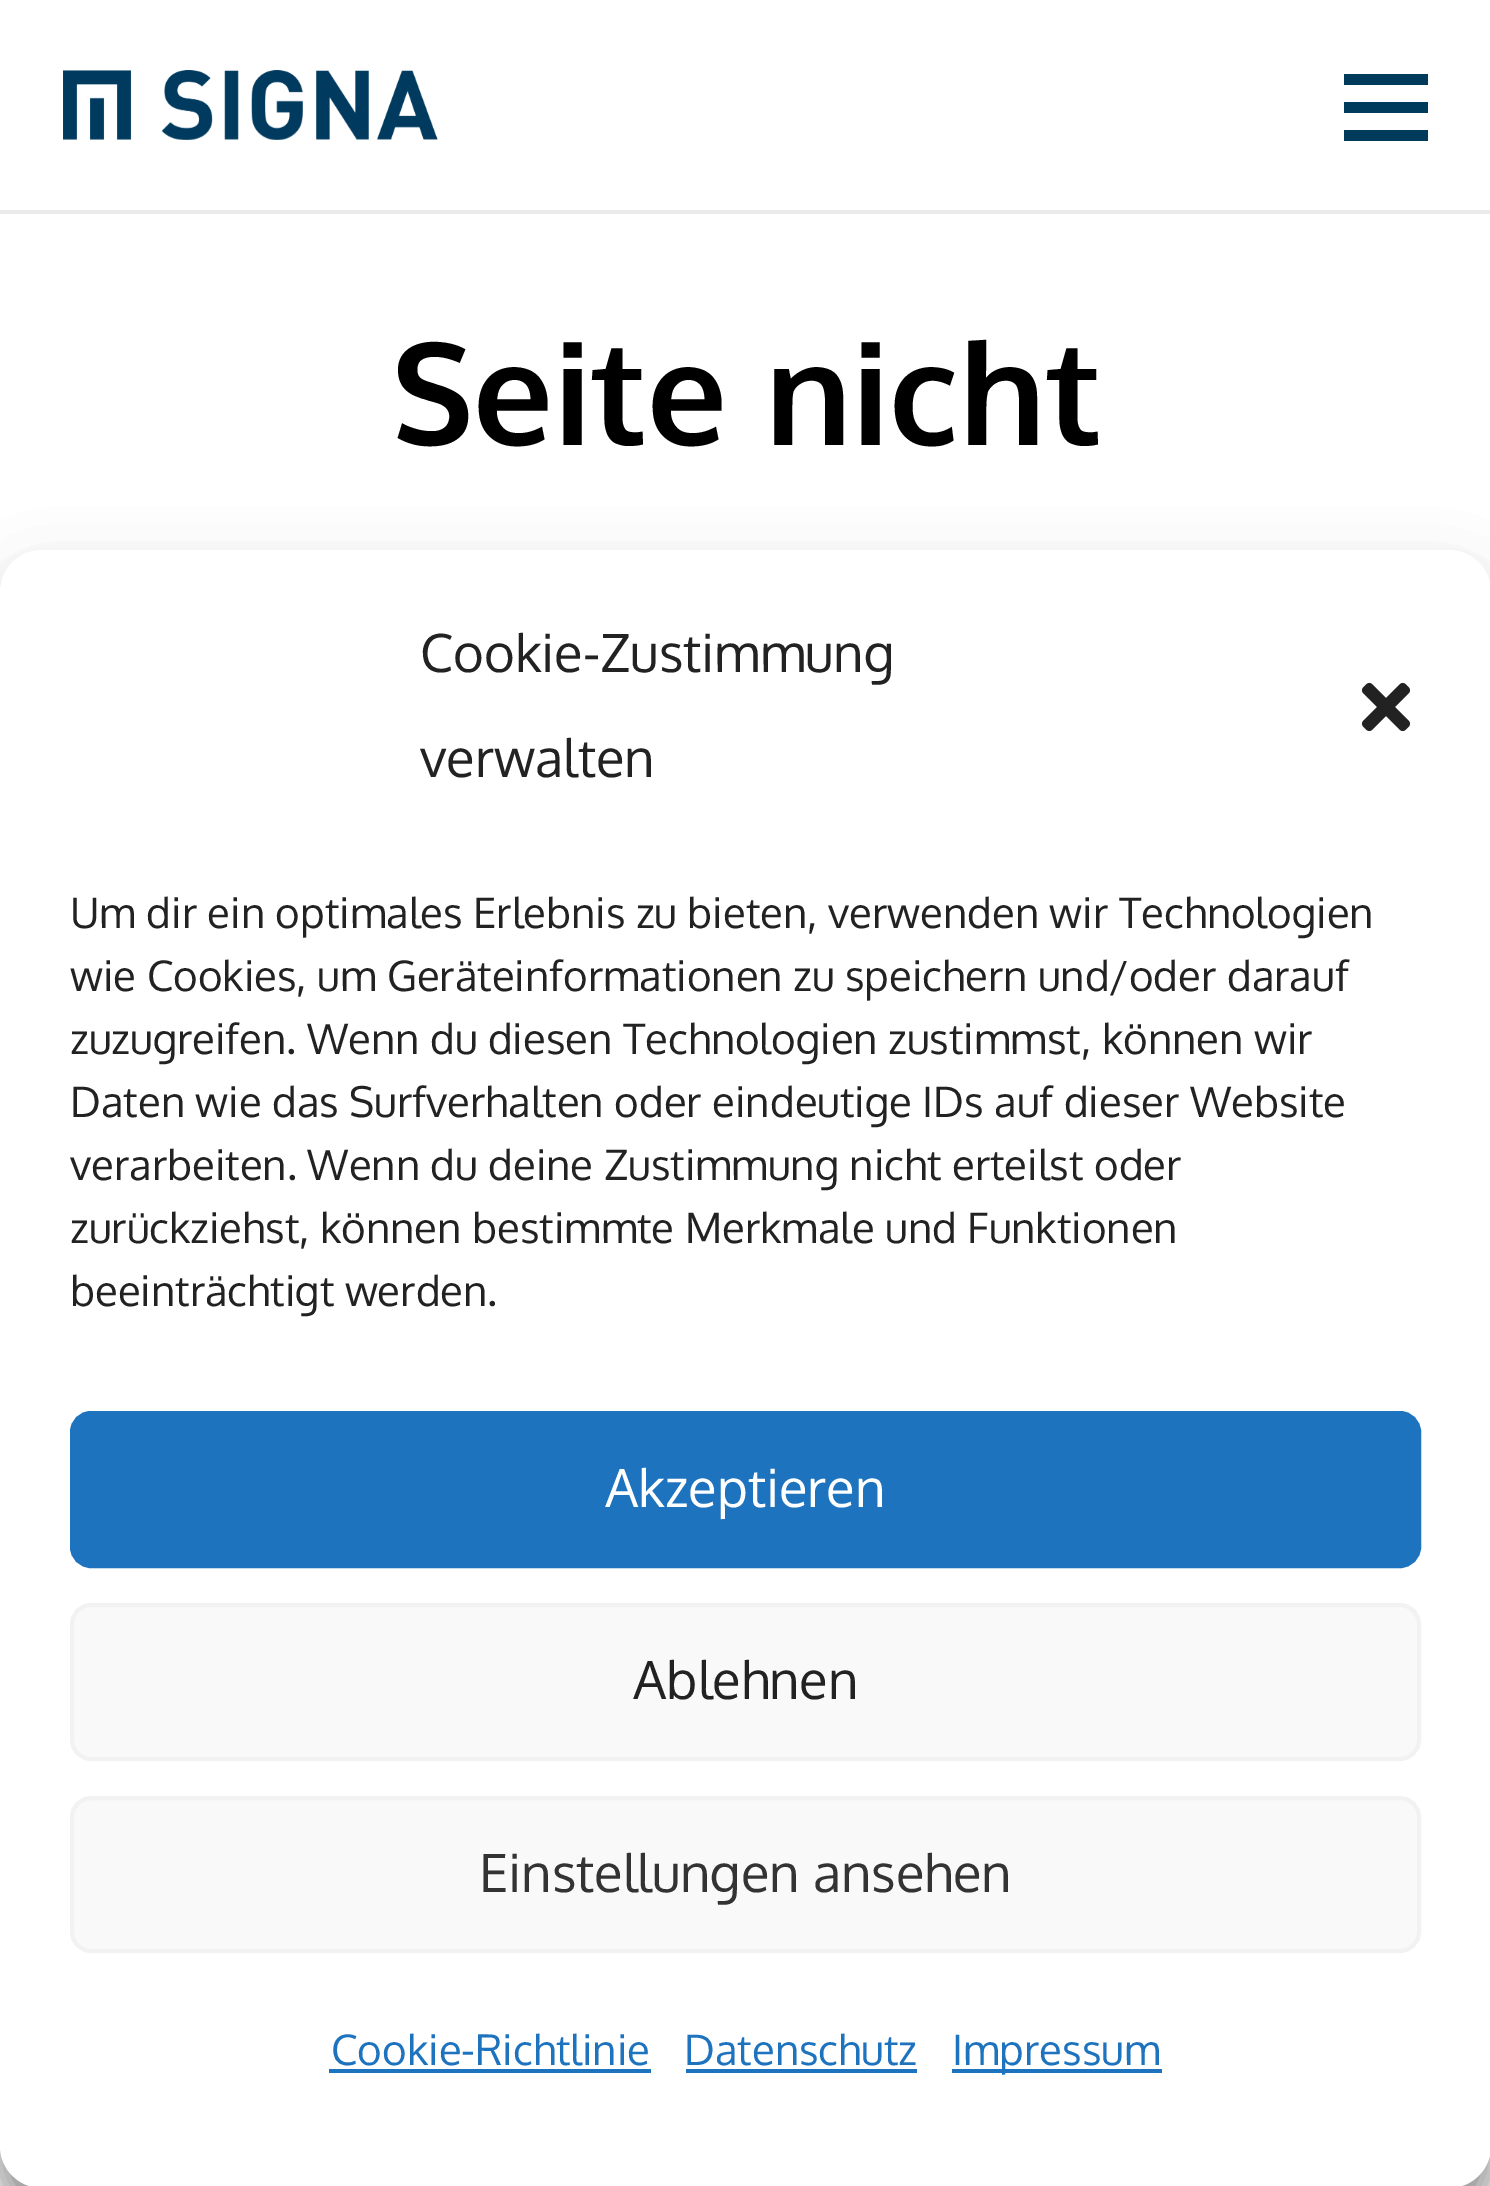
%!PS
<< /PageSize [1490 2186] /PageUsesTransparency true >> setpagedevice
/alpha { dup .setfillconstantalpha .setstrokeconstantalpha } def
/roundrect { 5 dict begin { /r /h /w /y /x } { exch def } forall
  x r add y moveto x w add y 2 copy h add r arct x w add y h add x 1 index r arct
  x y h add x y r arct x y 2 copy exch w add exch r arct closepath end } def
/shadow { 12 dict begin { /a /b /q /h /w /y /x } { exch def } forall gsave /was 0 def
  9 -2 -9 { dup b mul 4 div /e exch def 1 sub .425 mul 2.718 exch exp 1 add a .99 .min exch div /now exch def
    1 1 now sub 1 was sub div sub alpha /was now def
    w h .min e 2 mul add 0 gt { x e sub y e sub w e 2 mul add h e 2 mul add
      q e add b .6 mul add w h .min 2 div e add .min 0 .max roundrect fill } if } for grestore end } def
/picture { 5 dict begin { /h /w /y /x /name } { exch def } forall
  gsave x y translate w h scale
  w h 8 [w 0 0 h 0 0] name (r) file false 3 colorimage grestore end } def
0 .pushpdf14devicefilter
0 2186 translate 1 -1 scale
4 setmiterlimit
1 setgray
0 0 1490 2186 rectfill
0.922 setgray
0 210 1490 4 rectfill
(img1.rgb) 63 70 375 70 picture
0 0.231 0.361 setrgbcolor
1344 102 84 11 rectfill
1344 74 84 11 rectfill
1344 130 84 11 rectfill
/Oxygen-Bold [142 0 0 -142 0 0] selectfont
0 setgray
391 445 moveto (Seite nicht) show
0.953 setgray
0 2146 1490 40 rectfill
0 setgray
0 571 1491 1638 42 10.5 0.23 shadow
0 585 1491 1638 42 35 0.19 shadow
1 setgray
0 550 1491 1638 42 roundrect fill
/Oxygen-Regular [52.5 0 0 -52.5 0 0] selectfont
0.133 setgray
420 672 moveto (Cookie-Zustimmung) show
420 777 moveto (verwalten) show
(img2.rgb) 1361 682 50 50 picture
/Oxygen-Regular [42 0 0 -42 0 0] selectfont
70 928 moveto (Um dir ein optimales Erlebnis zu bieten, verwenden wir Technologien) show
70 991 moveto (wie Cookies, um Geräteinformationen zu speichern und/oder darauf) show
70 1054 moveto (zuzugreifen. Wenn du diesen Technologien zustimmst, können wir) show
70 1117 moveto (Daten wie das Surfverhalten oder eindeutige IDs auf dieser Website) show
70 1180 moveto (verarbeiten. Wenn du deine Zustimmung nicht erteilst oder) show
70 1243 moveto (zurückziehst, können bestimmte Merkmale und Funktionen) show
70 1306 moveto (beeinträchtigt werden.) show
0.118 0.451 0.745 setrgbcolor
72 1413 1347 153 19 roundrect gsave fill grestore
4 setlinewidth
stroke
/Oxygen-Regular [52.5 0 0 -52.5 0 0] selectfont
1 setgray
605 1507 moveto (Akzeptieren) show
0.976 setgray
72 1605 1347 154 19 roundrect gsave fill grestore
0.949 setgray
stroke
0.133 setgray
633 1699 moveto (Ablehnen) show
0.976 setgray
72 1798 1347 153 19 roundrect gsave fill grestore
0.949 setgray
stroke
0.2 setgray
479 1892 moveto (Einstellungen ansehen) show
/Oxygen-Regular [42 0 0 -42 0 0] selectfont
0.118 0.451 0.745 setrgbcolor
331 2065 moveto (Cookie-Richtlinie) show
329 2069 322 4 rectfill
684 2065 moveto (Datenschutz) show
686 2069 231 4 rectfill
952 2069 210 4 rectfill
952 2065 moveto (Impressum) show
.poppdf14devicefilter showpage
